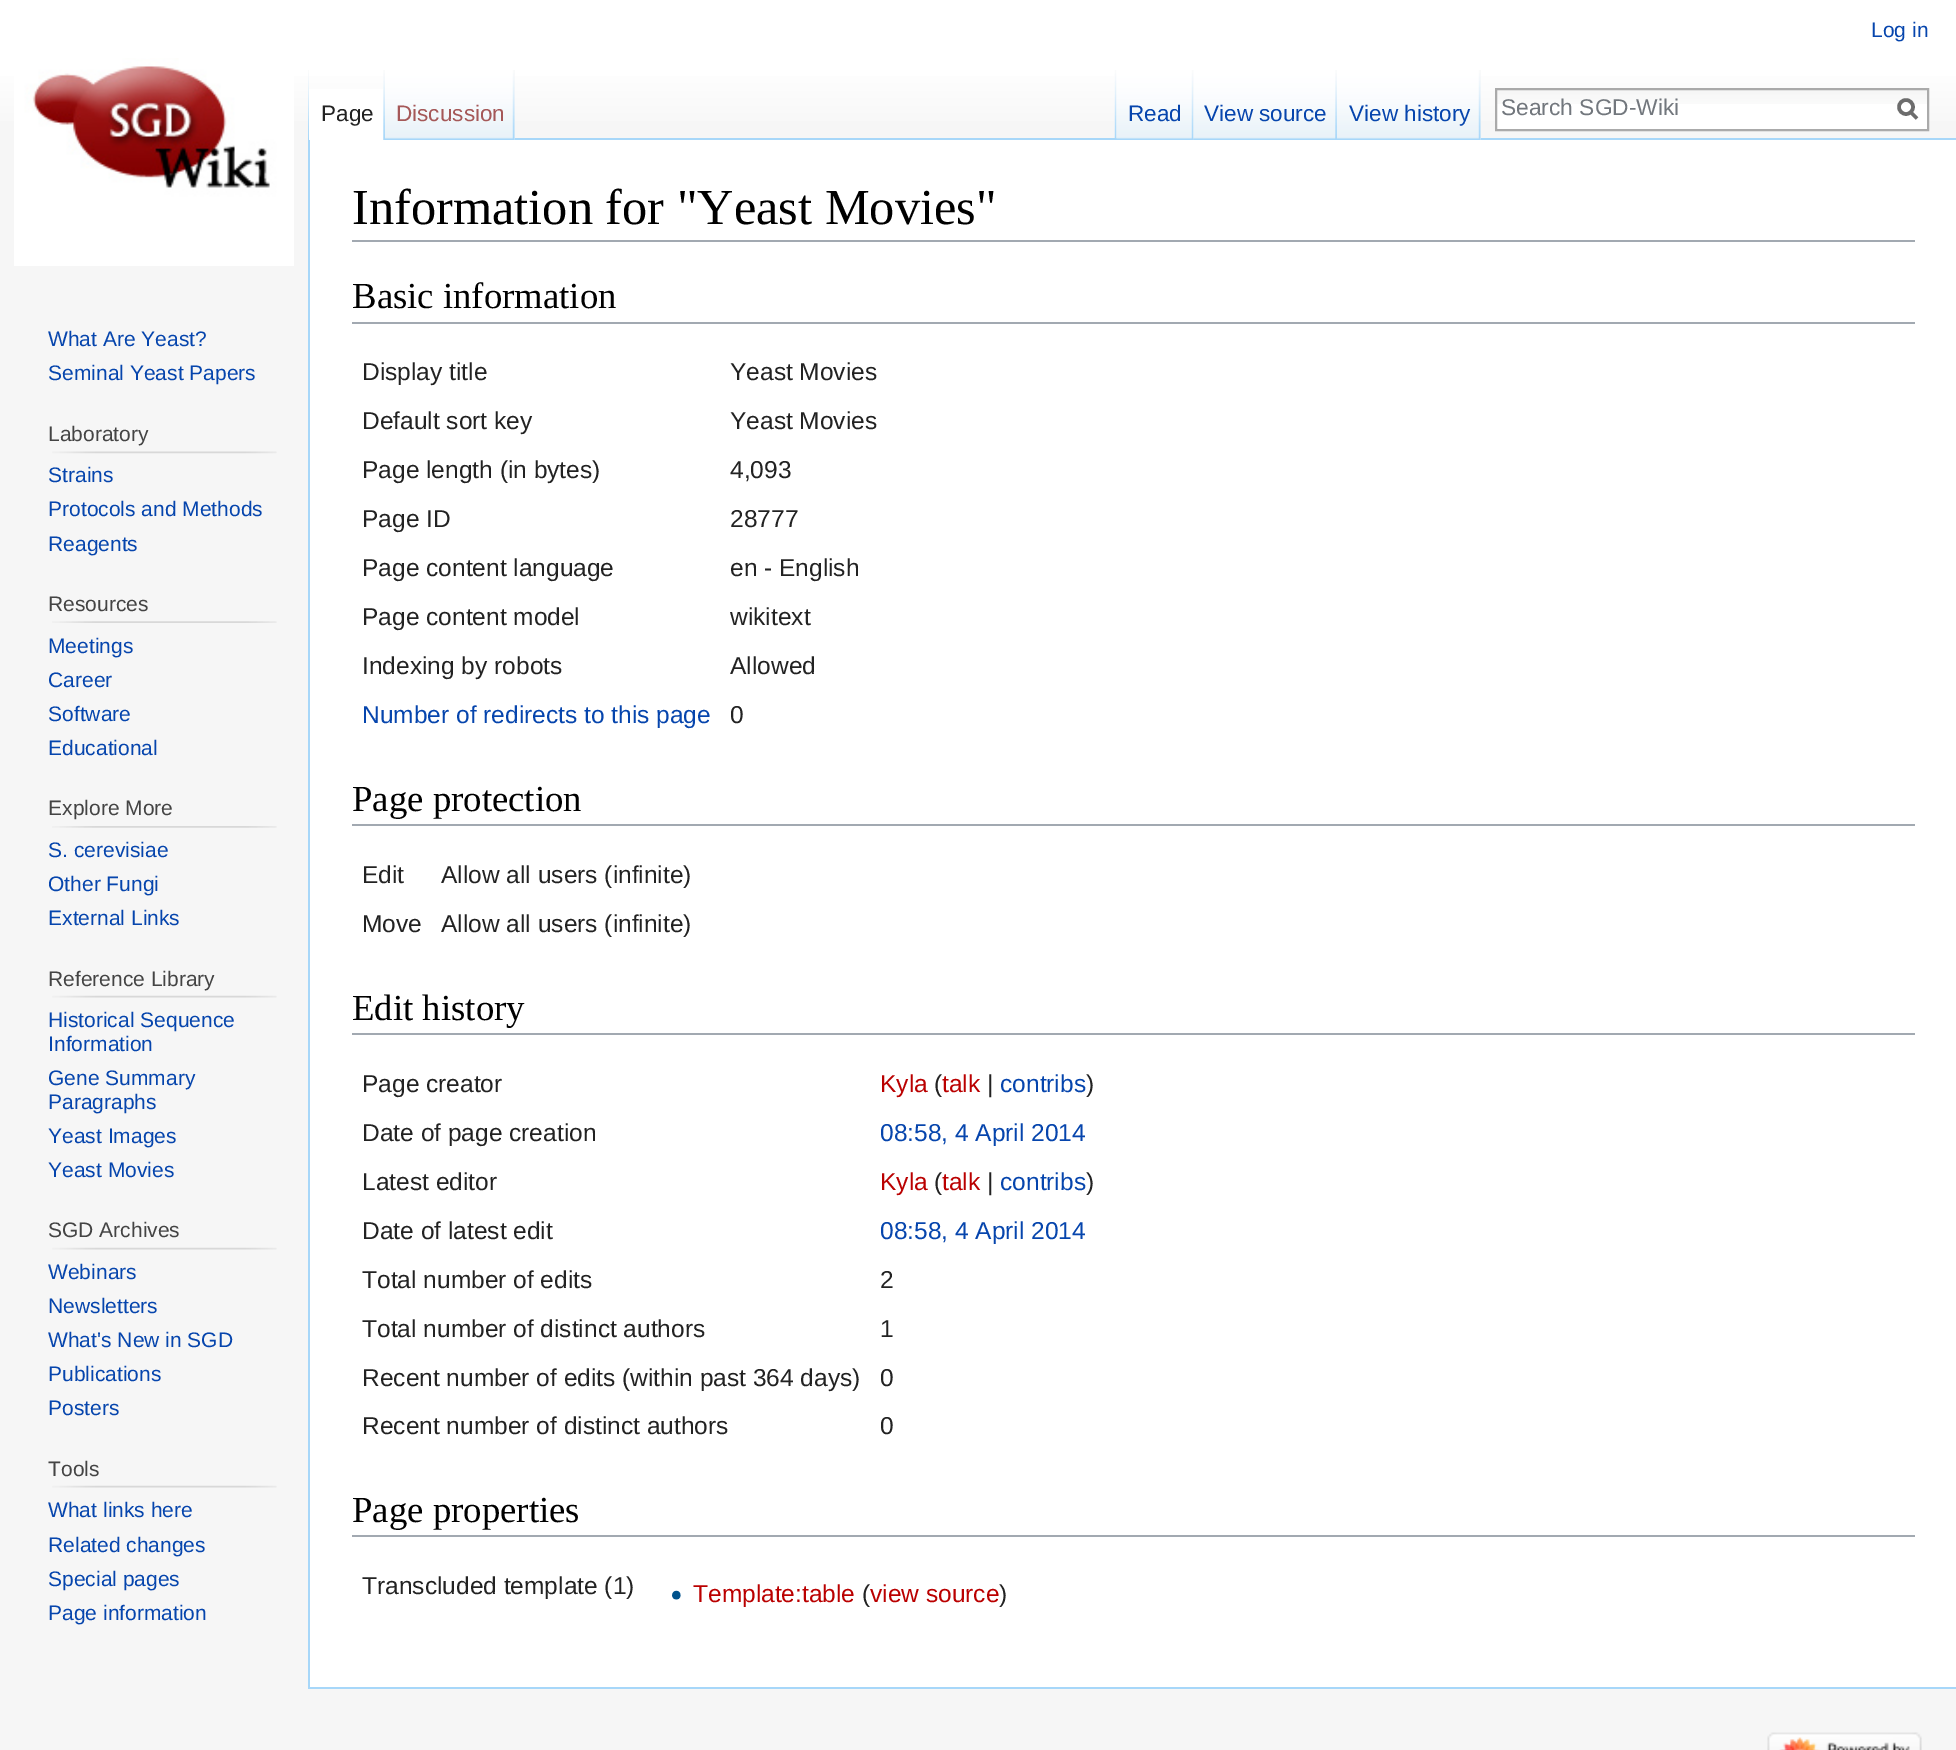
%!PS
<< /PageSize [1956 1750] >> setpagedevice
/picture { 5 dict begin { /h /w /y /x /name } { exch def } forall
  gsave x y translate w h scale
  w h 8 [w 0 0 h 0 0] name (r) file false 3 colorimage grestore end } def
0 1750 translate 1 -1 scale
4 setmiterlimit
0.965 setgray
0 0 1956 1750 rectfill
gsave newpath 0 0 moveto 1956 0 lineto 1956 121 lineto 0 121 lineto closepath clip newpath
<< /ShadingType 2 /ColorSpace /DeviceRGB /Coords [978 0 978 140] /Extend [true true] /Function << /FunctionType 3 /Domain [0 1] /Functions [<< /FunctionType 2 /Domain [0 1] /C0 [1 1 1] /C1 [1 1 1] /N 1 >> << /FunctionType 2 /Domain [0 1] /C0 [1 1 1] /C1 [0.965 0.965 0.965] /N 1 >>] /Bounds [0.5] /Encode [0 1 0 1] >> >> shfill grestore
/LiberationSans-Regular [21 0 0 -21 0 0] selectfont
0.024 0.271 0.678 setrgbcolor
1871 37 moveto (Log in) show
(img1.rgb) 308 70 1 68 picture
(img2.rgb) 514 70 1 68 picture
0.655 0.843 0.976 setrgbcolor
308 1687 1648 2 rectfill
308 138 2 1551 rectfill
1 setgray
309 89 75 51 rectfill
(img3.rgb) 383 70 2 70 picture
/LiberationSans-Regular [22.5 0 0 -22.5 0 0] selectfont
0.133 setgray
321 121 moveto (Page) show
0.655 0.843 0.976 setrgbcolor
514 138 1442 2 rectfill
(img4.rgb) 385 70 130 70 picture
(img5.rgb) 512 70 3 70 picture
0.647 0.345 0.345 setrgbcolor
396 121 moveto (Discussion) show
(img6.rgb) 1114 70 3 68 picture
(img2.rgb) 1480 70 1 68 picture
(img7.rgb) 1116 70 78 70 picture
(img5.rgb) 1191 70 3 70 picture
0.024 0.271 0.678 setrgbcolor
1128 121 moveto (Read) show
(img8.rgb) 1193 70 144 70 picture
(img9.rgb) 1335 70 2 69 picture
1204 121 moveto (View source) show
(img10.rgb) 1337 70 144 70 picture
(img5.rgb) 1478 70 3 70 picture
1349 121 moveto (View history) show
1 setgray
1497 104 430 25 rectfill
(img11.rgb) 1497 90 430 14 picture
0.667 setgray
2 setlinewidth
1496 89 432 41 rectstroke
/LiberationSans-Regular [22.75 0 0 -22.75 0 0] selectfont
0.447 0.467 0.49 setrgbcolor
1501 115 moveto (Search SGD-Wiki) show
0.424 setgray
3.5 setlinewidth
newpath 1917 118.5 moveto 1910 111.5 lineto stroke
newpath 1906 107 7 0 360 arc closepath stroke
(img12.rgb) 14 58 280 208 picture
/LiberationSans-Regular [21 0 0 -21 0 0] selectfont
0.024 0.271 0.678 setrgbcolor
48 346 moveto (What Are Yeast?) show
48 380 moveto (Seminal Yeast Papers) show
0.267 setgray
48 441 moveto (Laboratory) show
(img13.rgb) 52 451 225 3 picture
0.024 0.271 0.678 setrgbcolor
48 482 moveto (Strains) show
48 516 moveto (Protocols and Methods) show
48 551 moveto (Reagents) show
0.267 setgray
48 611 moveto (Resources) show
(img14.rgb) 52 621 225 2 picture
0.024 0.271 0.678 setrgbcolor
48 653 moveto (Meetings) show
48 687 moveto (Career) show
48 721 moveto (Software) show
48 755 moveto (Educational) show
0.267 setgray
48 815 moveto (Explore More) show
(img15.rgb) 52 826 225 2 picture
0.024 0.271 0.678 setrgbcolor
48 857 moveto (S. cerevisiae) show
48 891 moveto (Other Fungi) show
48 925 moveto (External Links) show
0.267 setgray
48 986 moveto (Reference Library) show
(img16.rgb) 52 995 225 3 picture
0.024 0.271 0.678 setrgbcolor
48 1027 moveto (Historical Sequence) show
48 1051 moveto (Information) show
48 1085 moveto (Gene Summary) show
48 1109 moveto (Paragraphs) show
48 1143 moveto (Yeast Images) show
48 1177 moveto (Yeast Movies) show
0.267 setgray
48 1237 moveto (SGD Archives) show
(img16.rgb) 52 1247 225 3 picture
0.024 0.271 0.678 setrgbcolor
48 1279 moveto (Webinars) show
48 1313 moveto (Newsletters) show
48 1347 moveto (What's New in SGD) show
48 1381 moveto (Publications) show
48 1415 moveto (Posters) show
0.267 setgray
48 1476 moveto (Tools) show
(img16.rgb) 52 1485 225 3 picture
0.024 0.271 0.678 setrgbcolor
48 1517 moveto (What links here) show
48 1552 moveto (Related changes) show
48 1586 moveto (Special pages) show
48 1620 moveto (Page information) show
1 setgray
310 140 1646 1547 rectfill
0.635 0.663 0.694 setrgbcolor
352 240 1563 2 rectfill
/LiberationSerif-Regular [50.4 0 0 -50.4 0 0] selectfont
0 setgray
352 224 moveto (Information for "Yeast Movies") show
0.635 0.663 0.694 setrgbcolor
352 322 1563 2 rectfill
/LiberationSerif-Regular [36.75 0 0 -36.75 0 0] selectfont
0 setgray
352 308 moveto (Basic information) show
/LiberationSans-Regular [24.5 0 0 -24.5 0 0] selectfont
0.133 setgray
362 380 moveto (Display title) show
730 380 moveto (Yeast Movies) show
362 429 moveto (Default sort key) show
730 429 moveto (Yeast Movies) show
362 478 moveto (Page length \(in bytes\)) show
730 478 moveto (4,093) show
362 527 moveto (Page ID) show
730 527 moveto (28777) show
362 576 moveto (Page content language) show
730 576 moveto (en - English) show
362 625 moveto (Page content model) show
730 625 moveto (wikitext) show
362 674 moveto (Indexing by robots) show
730 674 moveto (Allowed) show
0.024 0.271 0.678 setrgbcolor
362 723 moveto (Number of redirects to this page) show
0.133 setgray
730 723 moveto (0) show
0.635 0.663 0.694 setrgbcolor
352 824 1563 2 rectfill
/LiberationSerif-Regular [36.75 0 0 -36.75 0 0] selectfont
0 setgray
352 811 moveto (Page protection) show
/LiberationSans-Regular [24.5 0 0 -24.5 0 0] selectfont
0.133 setgray
362 883 moveto (Edit) show
441 883 moveto (Allow all users \(infinite\)) show
362 932 moveto (Move) show
441 932 moveto (Allow all users \(infinite\)) show
0.635 0.663 0.694 setrgbcolor
352 1033 1563 2 rectfill
/LiberationSerif-Regular [36.75 0 0 -36.75 0 0] selectfont
0 setgray
352 1020 moveto (Edit history) show
/LiberationSans-Regular [24.5 0 0 -24.5 0 0] selectfont
0.133 setgray
362 1092 moveto (Page creator) show
0.729 0 0 setrgbcolor
880 1092 moveto (Kyla) show
0.133 setgray
934 1092 moveto (\() show
0.729 0 0 setrgbcolor
942 1092 moveto (talk) show
0.133 setgray
987 1092 moveto (|) show
0.024 0.271 0.678 setrgbcolor
1000 1092 moveto (contribs) show
0.133 setgray
1086 1092 moveto (\)) show
362 1141 moveto (Date of page creation) show
0.024 0.271 0.678 setrgbcolor
880 1141 moveto (08:58, 4 April 2014) show
0.133 setgray
362 1190 moveto (Latest editor) show
0.729 0 0 setrgbcolor
880 1190 moveto (Kyla) show
0.133 setgray
934 1190 moveto (\() show
0.729 0 0 setrgbcolor
942 1190 moveto (talk) show
0.133 setgray
987 1190 moveto (|) show
0.024 0.271 0.678 setrgbcolor
1000 1190 moveto (contribs) show
0.133 setgray
1086 1190 moveto (\)) show
362 1239 moveto (Date of latest edit) show
0.024 0.271 0.678 setrgbcolor
880 1239 moveto (08:58, 4 April 2014) show
0.133 setgray
362 1288 moveto (Total number of edits) show
880 1288 moveto (2) show
362 1337 moveto (Total number of distinct authors) show
880 1337 moveto (1) show
362 1386 moveto (Recent number of edits \(within past 364 days\)) show
880 1386 moveto (0) show
362 1434 moveto (Recent number of distinct authors) show
880 1434 moveto (0) show
0.635 0.663 0.694 setrgbcolor
352 1535 1563 2 rectfill
/LiberationSerif-Regular [36.75 0 0 -36.75 0 0] selectfont
0 setgray
352 1522 moveto (Page properties) show
/LiberationSans-Regular [24.5 0 0 -24.5 0 0] selectfont
0.133 setgray
362 1594 moveto (Transcluded template \(1\)) show
(img17.rgb) 672 1590 9 10 picture
0.729 0 0 setrgbcolor
693 1602 moveto (Template:table) show
0.133 setgray
862 1602 moveto (\() show
0.729 0 0 setrgbcolor
870 1602 moveto (view source) show
0.133 setgray
999 1602 moveto (\)) show
(img18.rgb) 1767 1732 155 18 picture
showpage
